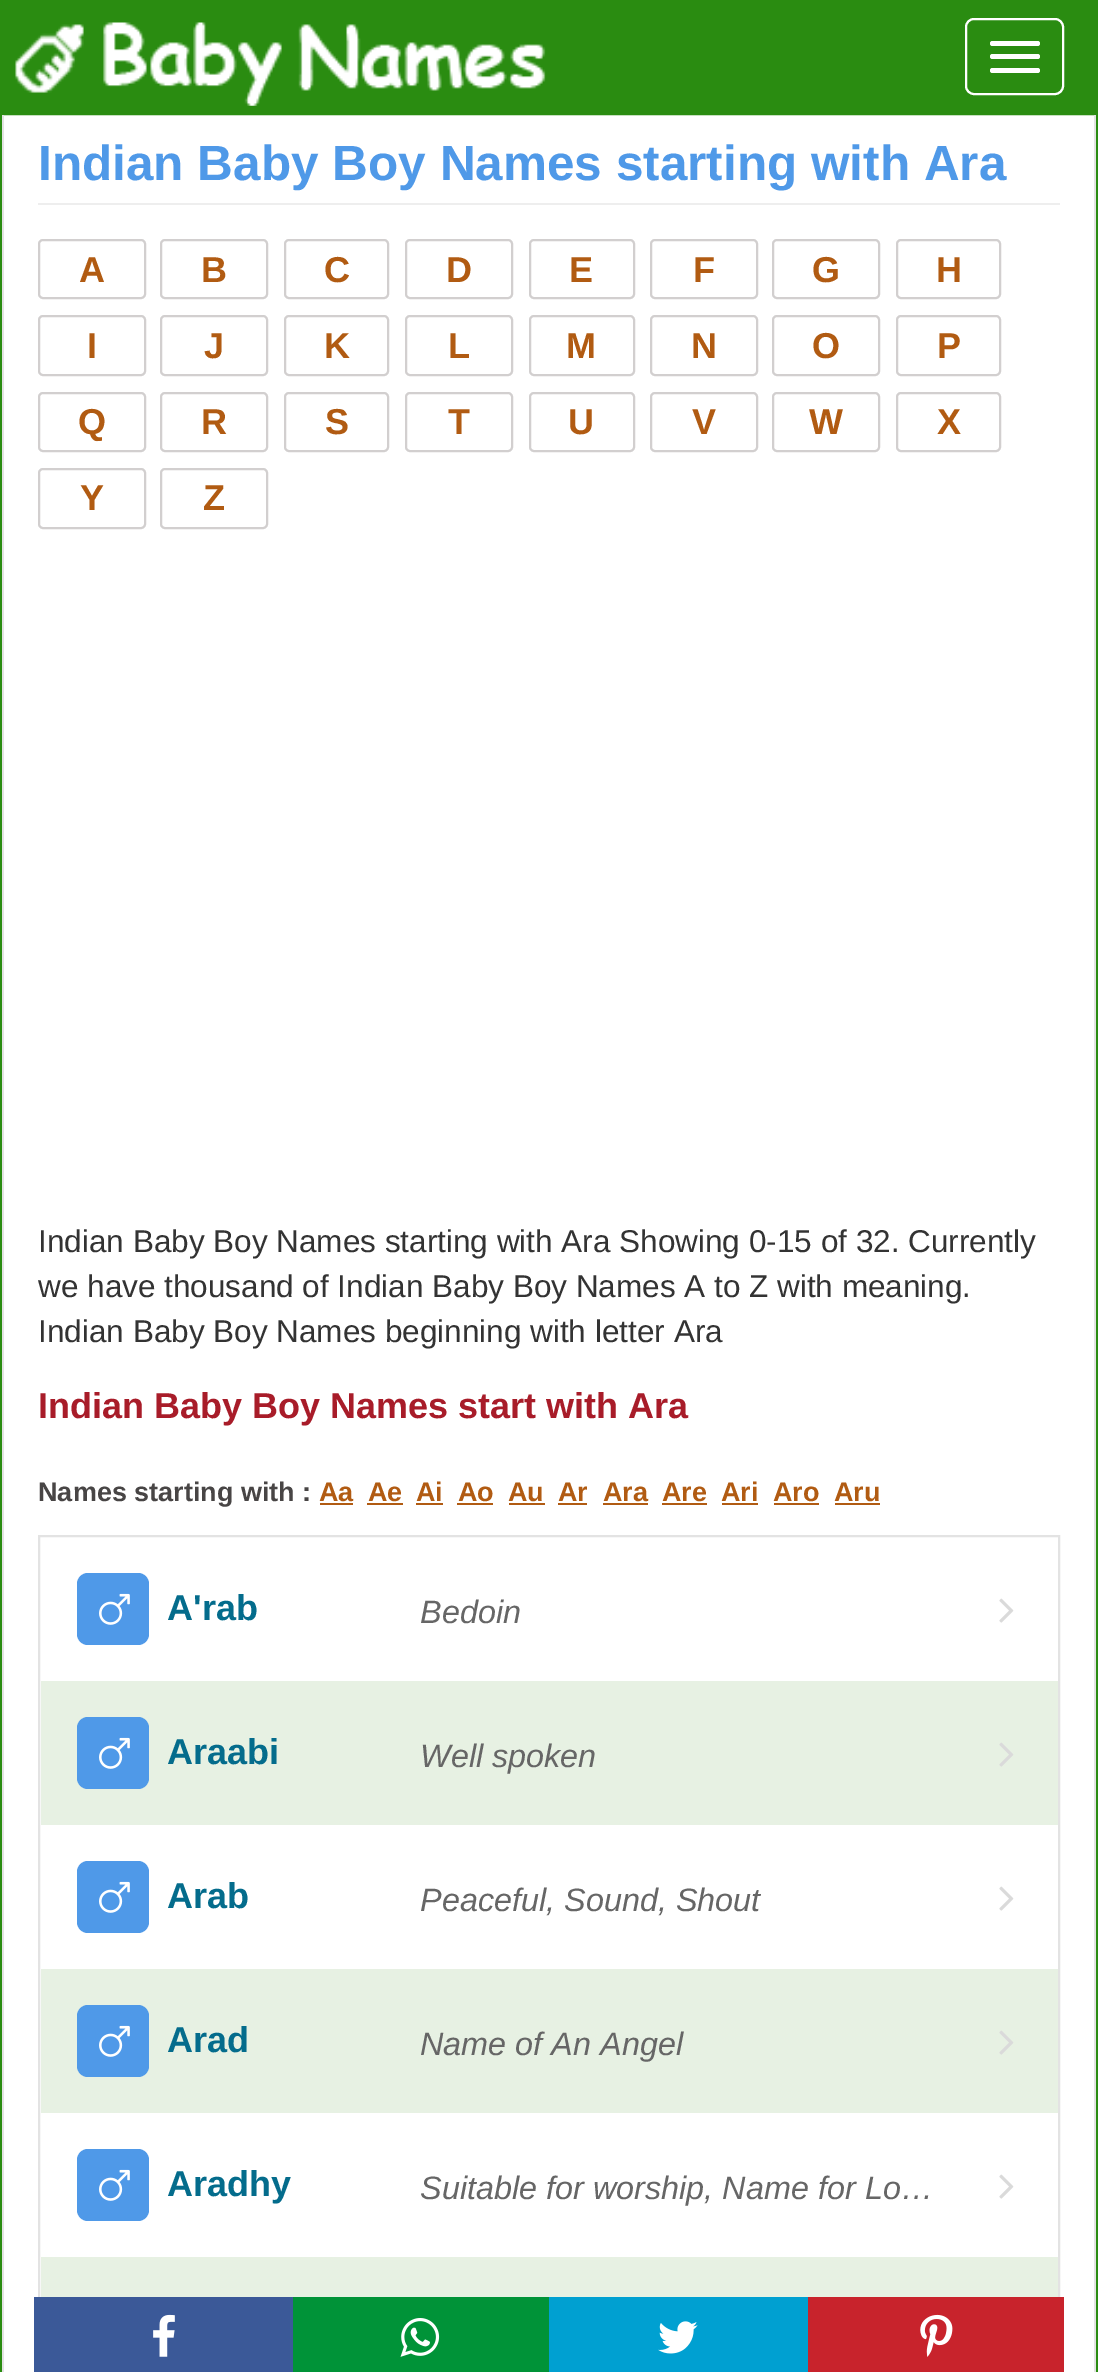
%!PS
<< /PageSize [1098 2372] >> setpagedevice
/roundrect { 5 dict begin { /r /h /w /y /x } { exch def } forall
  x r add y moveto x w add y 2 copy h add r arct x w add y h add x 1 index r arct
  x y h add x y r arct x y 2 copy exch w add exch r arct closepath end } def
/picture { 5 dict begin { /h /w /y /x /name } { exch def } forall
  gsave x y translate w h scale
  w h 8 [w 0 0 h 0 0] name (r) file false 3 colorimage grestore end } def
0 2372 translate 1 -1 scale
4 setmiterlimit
1 setgray
0 0 1098 2372 rectfill
0.165 0.549 0.067 setrgbcolor
0 0 1098 113 rectfill
(img1.rgb) 15 22 531 84 picture
1 setgray
2 setlinewidth
966 19 97 75 8 roundrect stroke
990 41 50 5 2.5 roundrect fill
990 54 50 5 2.5 roundrect fill
990 68 50 5 2.5 roundrect fill
0.165 0.549 0.067 setrgbcolor
1 114 1096 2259 rectstroke
0.89 setgray
1094 115 2 2257 rectfill
2 115 2 2257 rectfill
/LiberationSans-Bold [49.5 0 0 -49.5 0 0] selectfont
0.31 0.6 0.91 setrgbcolor
38 180 moveto (Indian Baby Boy Names starting with Ara) show
0.933 setgray
38 203 1022 2 rectfill
0.824 0.812 0.812 setrgbcolor
39 240 106 58 4 roundrect stroke
/LiberationSans-Bold [36 0 0 -36 0 0] selectfont
0.694 0.357 0.071 setrgbcolor
79 282 moveto (A) show
0.824 0.812 0.812 setrgbcolor
161 240 106 58 4 roundrect stroke
0.694 0.357 0.071 setrgbcolor
201 282 moveto (B) show
0.824 0.812 0.812 setrgbcolor
285 240 103 58 4 roundrect stroke
0.694 0.357 0.071 setrgbcolor
324 282 moveto (C) show
0.824 0.812 0.812 setrgbcolor
406 240 106 58 4 roundrect stroke
0.694 0.357 0.071 setrgbcolor
446 282 moveto (D) show
0.824 0.812 0.812 setrgbcolor
530 240 104 58 4 roundrect stroke
0.694 0.357 0.071 setrgbcolor
569 282 moveto (E) show
0.824 0.812 0.812 setrgbcolor
651 240 106 58 4 roundrect stroke
0.694 0.357 0.071 setrgbcolor
693 282 moveto (F) show
0.824 0.812 0.812 setrgbcolor
773 240 106 58 4 roundrect stroke
0.694 0.357 0.071 setrgbcolor
812 282 moveto (G) show
0.824 0.812 0.812 setrgbcolor
897 240 103 58 4 roundrect stroke
0.694 0.357 0.071 setrgbcolor
936 282 moveto (H) show
0.824 0.812 0.812 setrgbcolor
39 316 106 59 4 roundrect stroke
0.694 0.357 0.071 setrgbcolor
87 358 moveto (I) show
0.824 0.812 0.812 setrgbcolor
161 316 106 59 4 roundrect stroke
0.694 0.357 0.071 setrgbcolor
204 358 moveto (J) show
0.824 0.812 0.812 setrgbcolor
285 316 103 59 4 roundrect stroke
0.694 0.357 0.071 setrgbcolor
324 358 moveto (K) show
0.824 0.812 0.812 setrgbcolor
406 316 106 59 4 roundrect stroke
0.694 0.357 0.071 setrgbcolor
448 358 moveto (L) show
0.824 0.812 0.812 setrgbcolor
530 316 104 59 4 roundrect stroke
0.694 0.357 0.071 setrgbcolor
566 358 moveto (M) show
0.824 0.812 0.812 setrgbcolor
651 316 106 59 4 roundrect stroke
0.694 0.357 0.071 setrgbcolor
691 358 moveto (N) show
0.824 0.812 0.812 setrgbcolor
773 316 106 59 4 roundrect stroke
0.694 0.357 0.071 setrgbcolor
812 358 moveto (O) show
0.824 0.812 0.812 setrgbcolor
897 316 103 59 4 roundrect stroke
0.694 0.357 0.071 setrgbcolor
937 358 moveto (P) show
0.824 0.812 0.812 setrgbcolor
39 393 106 58 4 roundrect stroke
0.694 0.357 0.071 setrgbcolor
78 434 moveto (Q) show
0.824 0.812 0.812 setrgbcolor
161 393 106 58 4 roundrect stroke
0.694 0.357 0.071 setrgbcolor
201 434 moveto (R) show
0.824 0.812 0.812 setrgbcolor
285 393 103 58 4 roundrect stroke
0.694 0.357 0.071 setrgbcolor
325 434 moveto (S) show
0.824 0.812 0.812 setrgbcolor
406 393 106 58 4 roundrect stroke
0.694 0.357 0.071 setrgbcolor
448 434 moveto (T) show
0.824 0.812 0.812 setrgbcolor
530 393 104 58 4 roundrect stroke
0.694 0.357 0.071 setrgbcolor
568 434 moveto (U) show
0.824 0.812 0.812 setrgbcolor
651 393 106 58 4 roundrect stroke
0.694 0.357 0.071 setrgbcolor
692 434 moveto (V) show
0.824 0.812 0.812 setrgbcolor
773 393 106 58 4 roundrect stroke
0.694 0.357 0.071 setrgbcolor
809 434 moveto (W) show
0.824 0.812 0.812 setrgbcolor
897 393 103 58 4 roundrect stroke
0.694 0.357 0.071 setrgbcolor
937 434 moveto (X) show
0.824 0.812 0.812 setrgbcolor
39 469 106 59 4 roundrect stroke
0.694 0.357 0.071 setrgbcolor
80 510 moveto (Y) show
0.824 0.812 0.812 setrgbcolor
161 469 106 59 4 roundrect stroke
0.694 0.357 0.071 setrgbcolor
203 510 moveto (Z) show
/LiberationSans-Regular [31.5 0 0 -31.5 0 0] selectfont
0.2 setgray
38 1252 moveto (Indian Baby Boy Names starting with Ara Showing 0-15 of 32. Currently) show
38 1297 moveto (we have thousand of Indian Baby Boy Names A to Z with meaning.) show
38 1342 moveto (Indian Baby Boy Names beginning with letter Ara) show
/LiberationSans-Bold [36 0 0 -36 0 0] selectfont
0.659 0.11 0.161 setrgbcolor
38 1418 moveto (Indian Baby Boy Names start with Ara) show
/LiberationSans-Bold [27 0 0 -27 0 0] selectfont
0.282 0.271 0.271 setrgbcolor
38 1501 moveto (Names starting with :) show
0.694 0.357 0.071 setrgbcolor
319 1501 moveto (Aa) show
320 1503 33 2 rectfill
368 1501 moveto (Ae) show
367 1503 36 2 rectfill
416 1501 moveto (Ai) show
416 1503 27 2 rectfill
458 1501 moveto (Ao) show
457 1503 36 2 rectfill
508 1501 moveto (Au) show
509 1503 36 2 rectfill
558 1501 moveto (Ar) show
558 1503 29 2 rectfill
603 1501 moveto (Ara) show
603 1503 45 2 rectfill
662 1501 moveto (Are) show
662 1503 45 2 rectfill
721 1501 moveto (Ari) show
722 1503 36 2 rectfill
773 1501 moveto (Aro) show
774 1503 45 2 rectfill
834 1501 moveto (Aru) show
835 1503 45 2 rectfill
0.89 setgray
39 1536 1020 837 rectstroke
0.31 0.6 0.91 setrgbcolor
77 1573 72 72 11 roundrect fill
(img2.rgb) 99 1593 31 32 picture
/LiberationSans-Bold [36 0 0 -36 0 0] selectfont
0.016 0.424 0.549 setrgbcolor
167 1620 moveto (A'rab) show
/LiberationSans-Italic [32.4 0 0 -32.4 0 0] selectfont
0.4 setgray
420 1623 moveto (Bedoin) show
(img3.rgb) 999 1598 15 25 picture
0.906 0.945 0.89 setrgbcolor
41 1681 1017 144 rectfill
0.31 0.6 0.91 setrgbcolor
77 1717 72 72 11 roundrect fill
(img2.rgb) 99 1737 31 32 picture
/LiberationSans-Bold [36 0 0 -36 0 0] selectfont
0.016 0.424 0.549 setrgbcolor
167 1764 moveto (Araabi) show
/LiberationSans-Italic [32.4 0 0 -32.4 0 0] selectfont
0.4 setgray
420 1767 moveto (Well spoken) show
(img4.rgb) 999 1742 15 25 picture
0.31 0.6 0.91 setrgbcolor
77 1861 72 72 11 roundrect fill
(img2.rgb) 99 1881 31 32 picture
/LiberationSans-Bold [36 0 0 -36 0 0] selectfont
0.016 0.424 0.549 setrgbcolor
167 1908 moveto (Arab) show
/LiberationSans-Italic [32.4 0 0 -32.4 0 0] selectfont
0.4 setgray
420 1911 moveto (Peaceful, Sound, Shout) show
(img3.rgb) 999 1886 15 25 picture
0.906 0.945 0.89 setrgbcolor
41 1969 1017 144 rectfill
0.31 0.6 0.91 setrgbcolor
77 2005 72 72 11 roundrect fill
(img2.rgb) 99 2025 31 32 picture
/LiberationSans-Bold [36 0 0 -36 0 0] selectfont
0.016 0.424 0.549 setrgbcolor
167 2052 moveto (Arad) show
/LiberationSans-Italic [32.4 0 0 -32.4 0 0] selectfont
0.4 setgray
420 2055 moveto (Name of An Angel) show
(img4.rgb) 999 2030 15 25 picture
0.31 0.6 0.91 setrgbcolor
77 2149 72 72 11 roundrect fill
(img2.rgb) 99 2169 31 32 picture
/LiberationSans-Bold [36 0 0 -36 0 0] selectfont
0.016 0.424 0.549 setrgbcolor
167 2196 moveto (Aradhy) show
/LiberationSans-Italic [32.4 0 0 -32.4 0 0] selectfont
0.4 setgray
420 2199 moveto (Suitable for worship, Name for Lo…) show
(img3.rgb) 999 2174 15 25 picture
0.906 0.945 0.89 setrgbcolor
41 2257 1017 40 rectfill
0.231 0.349 0.596 setrgbcolor
34 2297 259 75 rectfill
(img5.rgb) 153 2314 22 43 picture
0 0.576 0.22 setrgbcolor
293 2297 256 75 rectfill
(img6.rgb) 400 2318 40 39 picture
0 0.627 0.82 setrgbcolor
549 2297 259 75 rectfill
(img7.rgb) 658 2321 40 33 picture
0.784 0.137 0.173 setrgbcolor
808 2297 256 75 rectfill
(img8.rgb) 920 2314 33 43 picture
showpage
